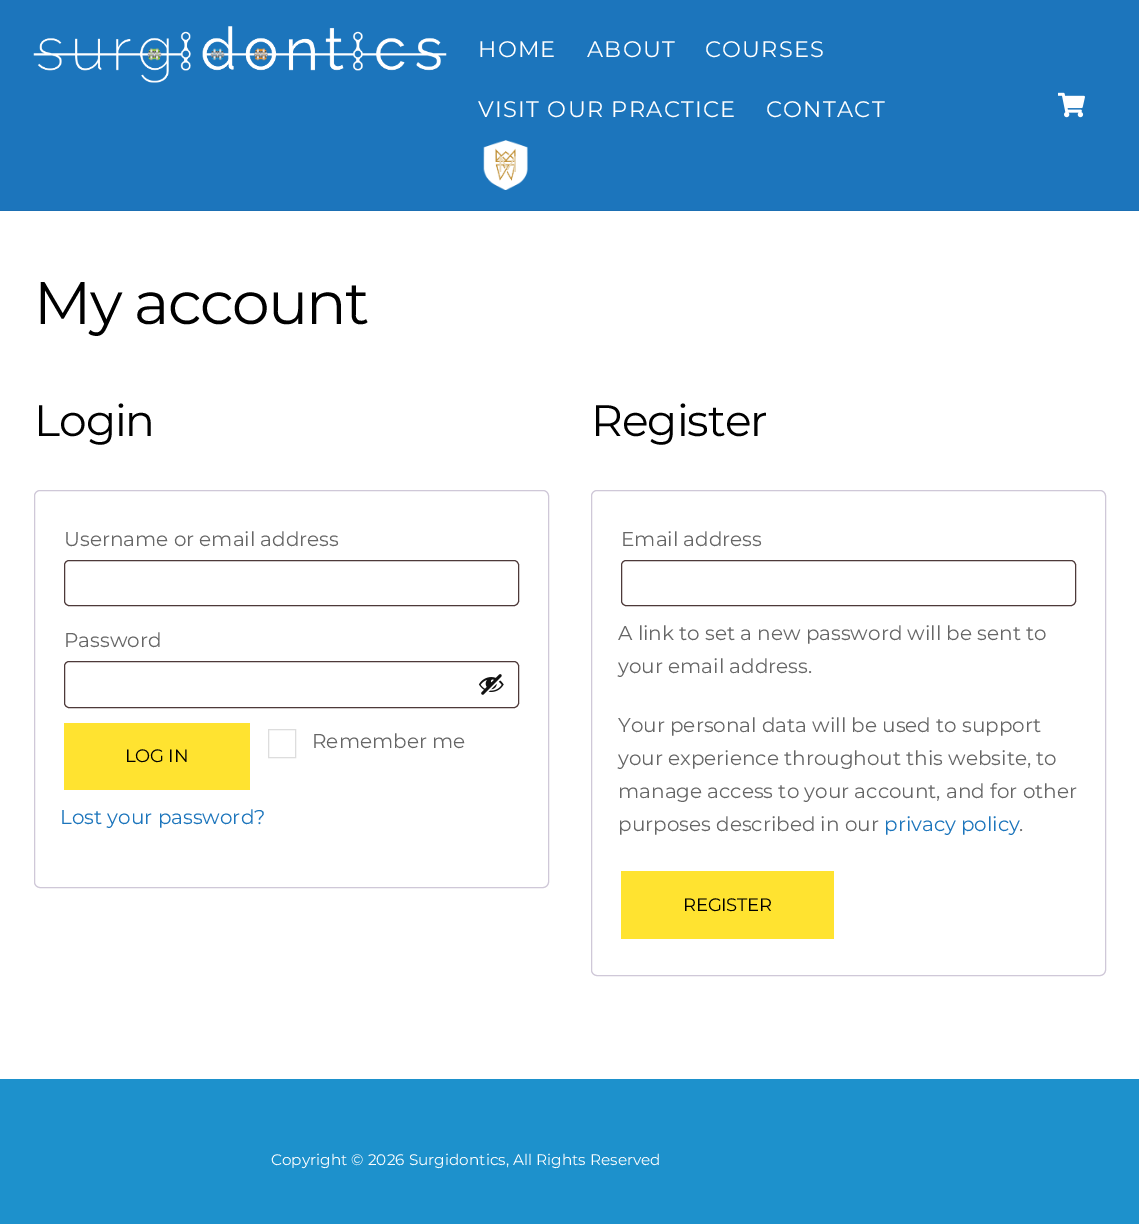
%!PS
<< /PageSize [1139 1225] >> setpagedevice
/roundrect { 5 dict begin { /r /h /w /y /x } { exch def } forall
  x r add y moveto x w add y 2 copy h add r arct x w add y h add x 1 index r arct
  x y h add x y r arct x y 2 copy exch w add exch r arct closepath end } def
/picture { 5 dict begin { /h /w /y /x /name } { exch def } forall
  gsave x y translate w h scale
  w h 8 [w 0 0 h 0 0] name (r) file false 3 colorimage grestore end } def
0 1225 translate 1 -1 scale
4 setmiterlimit
1 setgray
0 0 1139 1225 rectfill
0.11 0.459 0.737 setrgbcolor
0 0 1139 210 rectfill
0.106 0.435 0.702 setrgbcolor
0 210 1139 1 rectfill
(img1.rgb) 33 26 414 57 picture
/Montserrat-Thin [22.5 0 0 -22.5 0 0] selectfont
1 setgray
478 57 moveto 1.25 0 (HOME) ashow
587 57 moveto 1.25 0 (ABOUT) ashow
705 57 moveto 1.25 0 (COURSES) ashow
478 117 moveto 1.25 0 (VISIT OUR PRACTICE) ashow
766 117 moveto 1.25 0 (CONTACT) ashow
(img2.rgb) 483 140 45 50 picture
0.914 0.851 0.729 setrgbcolor
497 172 moveto 1.25 0 (M) ashow
(img3.rgb) 1058 92 27 26 picture
/Montserrat-Thin [60 0 0 -60 0 0] selectfont
0 setgray
34 324 moveto -1.75 0 (My account) ashow
/Montserrat-Thin [44 0 0 -44 0 0] selectfont
34 436 moveto -1 0 (Login) ashow
0.812 0.784 0.847 setrgbcolor
34.5 490.5 514 397 5.5 roundrect stroke
/Montserrat-Thin [20 0 0 -20 0 0] selectfont
0.4 setgray
64 546 moveto (Username or email address) show
0.302 0.224 0.224 setrgbcolor
64.5 560.5 454 45 4.5 roundrect stroke
0.4 setgray
64 647 moveto (Password) show
0.302 0.224 0.224 setrgbcolor
64.5 661.5 454 46 4.5 roundrect stroke
(img4.rgb) 478 674 26 21 picture
0.867 setgray
268.5 729.5 27 28 rectstroke
0.4 setgray
312 748 moveto (Remember me) show
1 0.89 0.188 setrgbcolor
64 723 186 67 rectfill
/Montserrat-Thin [18 0 0 -18 0 0] selectfont
0 setgray
125 762 moveto -0.25 0 (LOG IN) ashow
/Montserrat-Thin [20 0 0 -20 0 0] selectfont
0.11 0.459 0.737 setrgbcolor
60 824 moveto (Lost your password?) show
/Montserrat-Thin [44 0 0 -44 0 0] selectfont
0 setgray
591 436 moveto -1 0 (Register) ashow
0.812 0.784 0.847 setrgbcolor
591.5 490.5 514 485 5.5 roundrect stroke
/Montserrat-Thin [20 0 0 -20 0 0] selectfont
0.4 setgray
621 546 moveto (Email address) show
0.302 0.224 0.224 setrgbcolor
621.5 560.5 454 45 4.5 roundrect stroke
0.4 setgray
618 640 moveto (A link to set a new password will be sent to) show
618 673 moveto (your email address.) show
618 732 moveto (Your personal data will be used to support) show
618 765 moveto (your experience throughout this website, to) show
618 798 moveto (manage access to your account, and for other) show
618 831 moveto (purposes described in our) show
0.11 0.459 0.737 setrgbcolor
884 831 moveto (privacy policy) show
0.4 setgray
1019 831 moveto (.) show
1 0.89 0.188 setrgbcolor
621 871 213 68 rectfill
/Montserrat-Thin [18 0 0 -18 0 0] selectfont
0 setgray
683 911 moveto -0.25 0 (REGISTER) ashow
0.114 0.569 0.8 setrgbcolor
0 1079 1139 145 rectfill
/Montserrat-Thin [15.3 0 0 -15.3 0 0] selectfont
1 setgray
271 1165 moveto (Copyright © 2026 Surgidontics, All Rights Reserved) show
showpage
